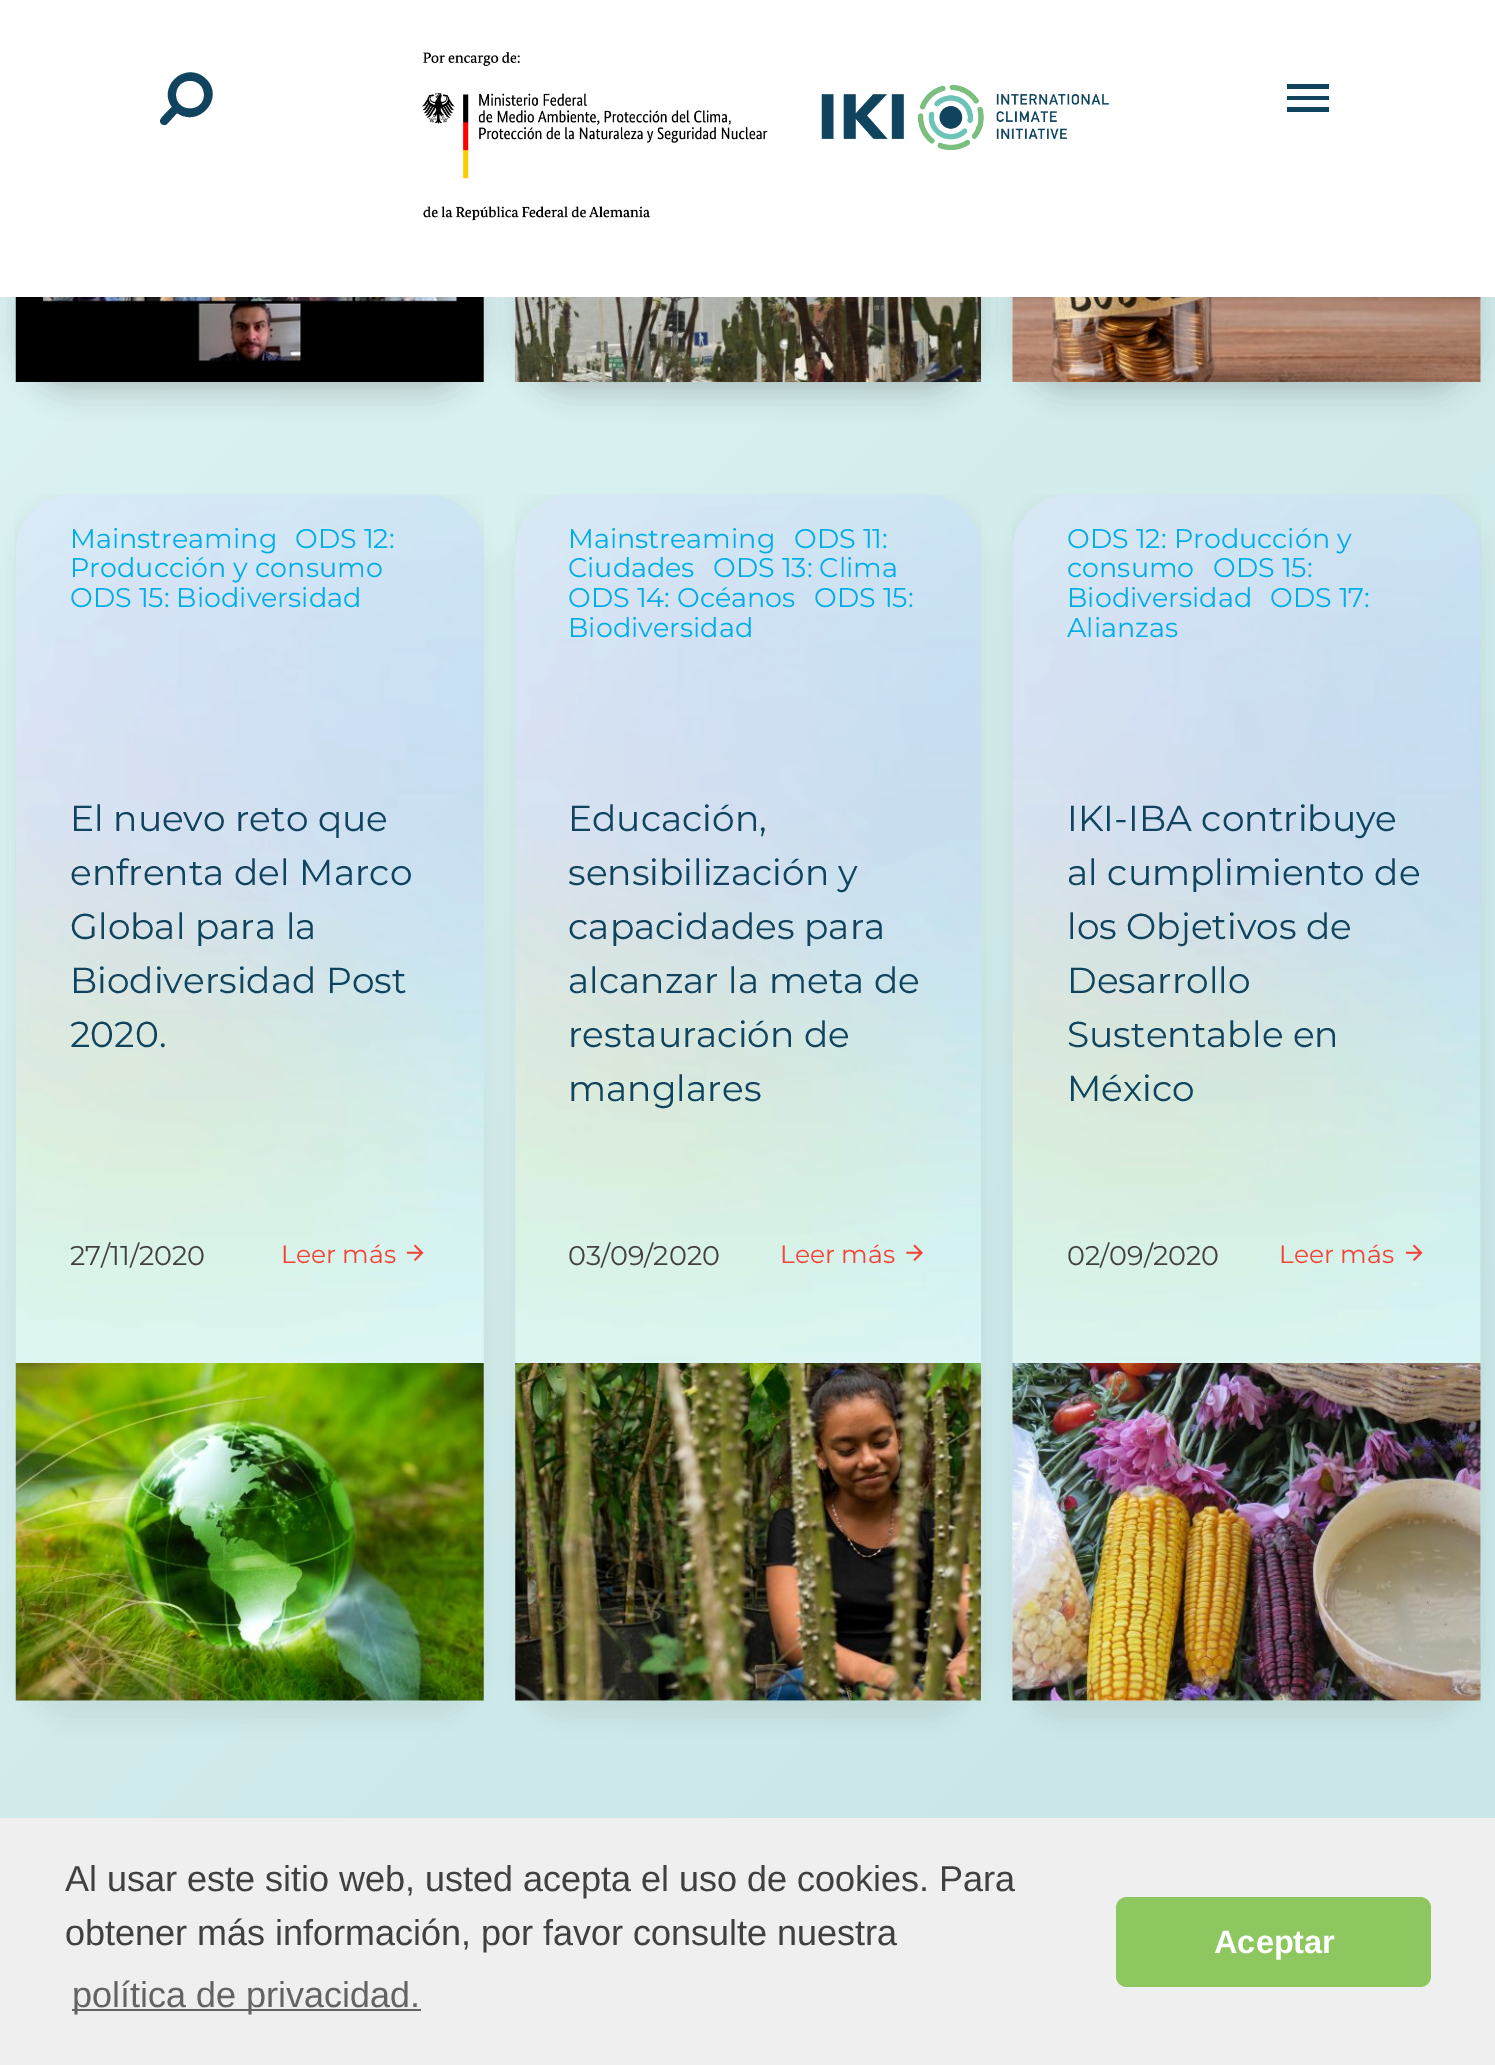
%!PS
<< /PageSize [1495 2065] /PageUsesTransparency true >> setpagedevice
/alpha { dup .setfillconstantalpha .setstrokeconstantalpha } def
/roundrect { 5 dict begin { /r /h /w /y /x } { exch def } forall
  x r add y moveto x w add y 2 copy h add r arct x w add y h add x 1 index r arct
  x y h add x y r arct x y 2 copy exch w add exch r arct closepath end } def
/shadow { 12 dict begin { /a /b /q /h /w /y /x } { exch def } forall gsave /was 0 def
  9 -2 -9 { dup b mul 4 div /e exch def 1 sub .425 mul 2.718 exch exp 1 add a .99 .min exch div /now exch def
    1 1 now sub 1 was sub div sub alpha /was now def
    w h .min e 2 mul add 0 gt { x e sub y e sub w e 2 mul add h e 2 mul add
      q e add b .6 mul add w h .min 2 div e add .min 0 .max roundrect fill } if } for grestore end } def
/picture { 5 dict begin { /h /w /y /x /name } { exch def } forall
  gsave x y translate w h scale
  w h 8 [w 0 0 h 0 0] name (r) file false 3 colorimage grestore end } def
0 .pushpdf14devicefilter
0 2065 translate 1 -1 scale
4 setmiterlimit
1 setgray
0 0 1495 2065 rectfill
gsave newpath 0 297 moveto 1495 297 lineto 1495 1818 lineto 0 1818 lineto closepath clip newpath
<< /ShadingType 2 /ColorSpace /DeviceRGB /Coords [-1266 -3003 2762 1169] /Extend [true true] /Function << /FunctionType 3 /Domain [0 1] /Functions [<< /FunctionType 2 /Domain [0 1] /C0 [0.812 0.859 0.949] /C1 [0.906 0.984 0.984] /N 1 >> << /FunctionType 2 /Domain [0 1] /C0 [0.906 0.984 0.984] /C1 [0.792 0.902 0.902] /N 1 >> << /FunctionType 2 /Domain [0 1] /C0 [0.792 0.902 0.902] /C1 [0.792 0.902 0.902] /N 1 >>] /Bounds [0.38 0.88] /Encode [0 1 0 1 0 1] >> >> shfill grestore
0 setgray
23 -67 454 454 50 5.5 0.05 shadow
11 -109 477 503 61 16 0.05 shadow
14 -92 472 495 59 11 0.05 shadow
522 -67 452 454 50 5.5 0.05 shadow
(img2.rgb) 483 297 1 37 picture
(img3.rgb) 15 297 469 85 picture
511 -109 475 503 61 16 0.05 shadow
513 -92 470 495 59 11 0.05 shadow
1019 -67 455 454 50 5.5 0.05 shadow
(img4.rgb) 515 297 1 37 picture
(img5.rgb) 515 297 466 85 picture
1008 -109 477 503 61 16 0.05 shadow
1010 -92 473 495 59 11 0.05 shadow
1 setgray
0 0 1495 297 rectfill
0.059 0.263 0.369 setrgbcolor
newpath 176 95 moveto 176 113 204 113 204 95 curveto 204 76 176 76 176 95 curveto closepath 160 121 moveto 160 118 169 110 172 107 curveto 157 86 186 60 206 79 curveto 225 98 199 128 177 113 curveto 167 124 lineto 166 125 165 125 164 125 curveto 162 125 160 123 160 121 curveto closepath fill
(img1.rgb) 422 52 687 169 picture
newpath 1287 84 moveto 1329 84 lineto 1329 89 lineto 1287 89 lineto closepath 1287 96 moveto 1329 96 lineto 1329 100 lineto 1287 100 lineto closepath 1287 107 moveto 1329 107 lineto 1329 112 lineto 1287 112 lineto closepath fill
(img6.rgb) 1012 297 469 36 picture
(img7.rgb) 1012 297 469 85 picture
gsave
newpath 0 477 moveto 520 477 lineto 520 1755 lineto 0 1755 lineto closepath 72 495 moveto 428 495 lineto 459 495 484 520 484 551 curveto 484 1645 lineto 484 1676 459 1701 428 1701 curveto 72 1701 lineto 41 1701 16 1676 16 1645 curveto 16 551 lineto 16 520 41 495 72 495 curveto closepath eoclip newpath
0 setgray
14 511 472 1210 59 11 0.05 shadow
grestore
(img8.rgb) 15 494 469 1207 picture
/Montserrat-Regular [27 0 0 -27 0 0] selectfont
0.004 0.678 0.902 setrgbcolor
70 548 moveto (Mainstreaming) show
295 548 moveto (ODS 12:) show
70 577 moveto (Producción y consumo) show
70 607 moveto (ODS 15: Biodiversidad) show
/Montserrat-Regular [36 0 0 -36 0 0] selectfont
0.059 0.263 0.369 setrgbcolor
70 831 moveto (El nuevo reto que) show
70 885 moveto (enfrenta del Marco) show
70 939 moveto (Global para la) show
70 993 moveto (Biodiversidad Post) show
70 1047 moveto (2020.) show
/Montserrat-Regular [27 0 0 -27 0 0] selectfont
0.251 setgray
70 1265 moveto (27/11/2020) show
/Montserrat-Regular [25 0 0 -25 0 0] selectfont
0.957 0.263 0.212 setrgbcolor
281 1263 moveto (Leer más) show
(img9.rgb) 406 1244 18 17 picture
(img10.rgb) 15 1363 469 338 picture
gsave
newpath 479 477 moveto 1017 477 lineto 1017 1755 lineto 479 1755 lineto closepath 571 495 moveto 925 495 lineto 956 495 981 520 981 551 curveto 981 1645 lineto 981 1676 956 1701 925 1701 curveto 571 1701 lineto 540 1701 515 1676 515 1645 curveto 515 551 lineto 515 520 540 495 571 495 curveto closepath eoclip newpath
0 setgray
513 511 470 1210 59 11 0.05 shadow
grestore
(img11.rgb) 515 494 466 1207 picture
/Montserrat-Regular [27 0 0 -27 0 0] selectfont
0.004 0.678 0.902 setrgbcolor
568 548 moveto (Mainstreaming) show
794 548 moveto (ODS 11:) show
568 577 moveto (Ciudades) show
713 577 moveto (ODS 13: Clima) show
568 607 moveto (ODS 14: Océanos) show
814 607 moveto (ODS 15:) show
568 637 moveto (Biodiversidad) show
/Montserrat-Regular [36 0 0 -36 0 0] selectfont
0.059 0.263 0.369 setrgbcolor
568 831 moveto (Educación,) show
568 885 moveto (sensibilización y) show
568 939 moveto (capacidades para) show
568 993 moveto (alcanzar la meta de) show
568 1047 moveto (restauración de) show
568 1101 moveto (manglares) show
/Montserrat-Regular [27 0 0 -27 0 0] selectfont
0.251 setgray
568 1265 moveto (03/09/2020) show
/Montserrat-Regular [25 0 0 -25 0 0] selectfont
0.957 0.263 0.212 setrgbcolor
780 1263 moveto (Leer más) show
(img12.rgb) 906 1244 17 17 picture
(img13.rgb) 515 1363 466 338 picture
gsave
newpath 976 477 moveto 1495 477 lineto 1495 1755 lineto 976 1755 lineto closepath 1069 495 moveto 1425 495 lineto 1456 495 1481 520 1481 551 curveto 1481 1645 lineto 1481 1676 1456 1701 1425 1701 curveto 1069 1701 lineto 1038 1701 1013 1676 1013 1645 curveto 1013 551 lineto 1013 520 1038 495 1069 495 curveto closepath eoclip newpath
0 setgray
1010 511 473 1210 59 11 0.05 shadow
grestore
(img14.rgb) 1012 494 469 1207 picture
/Montserrat-Regular [27 0 0 -27 0 0] selectfont
0.004 0.678 0.902 setrgbcolor
1067 548 moveto (ODS 12: Producción y) show
1067 577 moveto (consumo) show
1213 577 moveto (ODS 15:) show
1067 607 moveto (Biodiversidad) show
1270 607 moveto (ODS 17:) show
1067 637 moveto (Alianzas) show
/Montserrat-Regular [36 0 0 -36 0 0] selectfont
0.059 0.263 0.369 setrgbcolor
1067 831 moveto (IKI-IBA contribuye) show
1067 885 moveto (al cumplimiento de) show
1067 939 moveto (los Objetivos de) show
1067 993 moveto (Desarrollo) show
1067 1047 moveto (Sustentable en) show
1067 1101 moveto (México) show
/Montserrat-Regular [27 0 0 -27 0 0] selectfont
0.251 setgray
1067 1265 moveto (02/09/2020) show
/Montserrat-Regular [25 0 0 -25 0 0] selectfont
0.957 0.263 0.212 setrgbcolor
1279 1263 moveto (Leer más) show
(img15.rgb) 1405 1244 18 17 picture
(img16.rgb) 1012 1363 469 338 picture
0.937 setgray
0 1818 1495 247 rectfill
/LiberationSans-Regular [36 0 0 -36 0 0] selectfont
0.251 setgray
65 1891 moveto (Al usar este sitio web, usted acepta el uso de cookies. Para) show
65 1945 moveto (obtener más información, por favor consulte nuestra) show
0.388 setgray
72 2009 349 2 rectfill
72 2007 moveto (política de privacidad.) show
0.557 0.78 0.376 setrgbcolor
1116 1897 315 90 11 roundrect fill
/LiberationSans-Bold [32.5 0 0 -32.5 0 0] selectfont
1 setgray
1214 1953 moveto (Aceptar) show
.poppdf14devicefilter showpage
